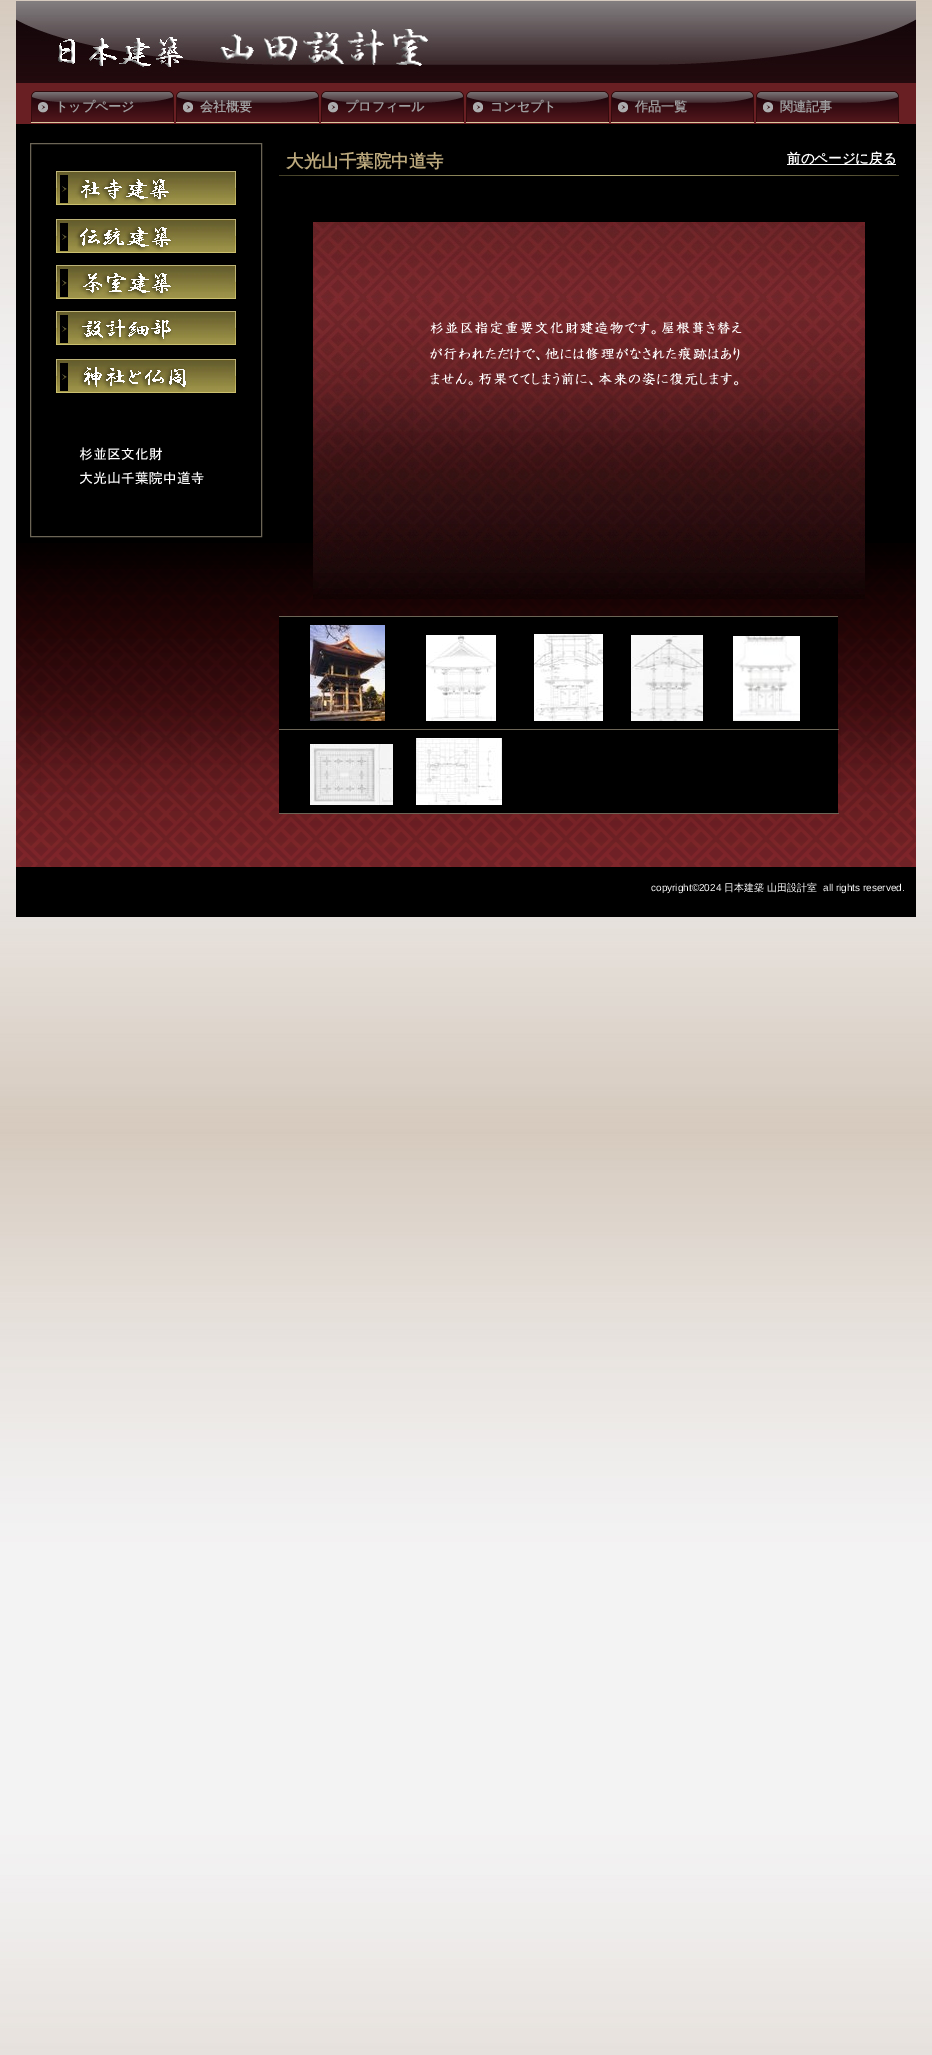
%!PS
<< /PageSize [932 2055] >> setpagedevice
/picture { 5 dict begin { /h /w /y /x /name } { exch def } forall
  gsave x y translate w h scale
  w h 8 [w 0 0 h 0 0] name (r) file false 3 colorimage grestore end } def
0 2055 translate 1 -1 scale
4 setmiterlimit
1 setgray
0 0 932 2055 rectfill
(img1.rgb) 0 0 932 2055 picture
(img2.rgb) 16 1 900 82 picture
0 setgray
16 124 900 419 rectfill
(img3.rgb) 16 543 900 324 picture
0.412 0.122 0.137 setrgbcolor
16 83 900 41 rectfill
(img4.rgb) 31 91 143 32 picture
/WenQuanYiZenHei-Bold [13 0 0 -13 0 0] selectfont
0.62 0.62 0.624 setrgbcolor
55 111 moveto (トップページ) show
(img4.rgb) 176 91 143 32 picture
200 111 moveto (会社概要) show
(img4.rgb) 321 91 143 32 picture
345 111 moveto (プロフィール) show
(img4.rgb) 466 91 143 32 picture
490 111 moveto (コンセプト) show
(img4.rgb) 611 91 143 32 picture
635 111 moveto (作品一覧) show
(img4.rgb) 756 91 143 32 picture
780 111 moveto (関連記事) show
0.424 0.396 0.337 setrgbcolor
30.5 143.5 231 393 rectstroke
(img5.rgb) 56 171 180 34 picture
(img6.rgb) 56 219 180 34 picture
(img7.rgb) 56 265 180 34 picture
(img8.rgb) 56 311 180 34 picture
(img9.rgb) 56 359 180 34 picture
(img10.rgb) 79 447 125 38 picture
(img11.rgb) 279 175 620 1 picture
/WenQuanYiZenHei-Bold [17.5 0 0 -17.5 0 0] selectfont
0.741 0.667 0.494 setrgbcolor
286 167 moveto (大光山千葉院中道寺) show
1 setgray
787 164 109 1 rectfill
/WenQuanYiZenHei-Bold [13.5 0 0 -13.5 0 0] selectfont
787 163 moveto (前のページに戻る) show
(img12.rgb) 313 222 552 377 picture
0 setgray
279 617 559 196 rectfill
0.424 0.396 0.337 setrgbcolor
279 616 559 1 rectfill
(img13.rgb) 310 625 75 96 picture
(img14.rgb) 426 635 70 86 picture
(img15.rgb) 534 634 69 87 picture
(img16.rgb) 631 635 72 86 picture
(img17.rgb) 733 636 67 85 picture
279 729 560 1 rectfill
(img18.rgb) 310 744 83 61 picture
(img19.rgb) 416 738 86 67 picture
279 813 560 1 rectfill
0 setgray
16 867 900 50 rectfill
/LiberationSans-Regular [10 0 0 -10 0 0] selectfont
1 setgray
651 891 moveto (copyright©2024) show
/WenQuanYiZenHei-Medium [10 0 0 -10 0 0] selectfont
724 891 moveto (日本建築 山田設計室) show
/LiberationSans-Regular [10 0 0 -10 0 0] selectfont
823 891 moveto (all rights reserved.) show
showpage
